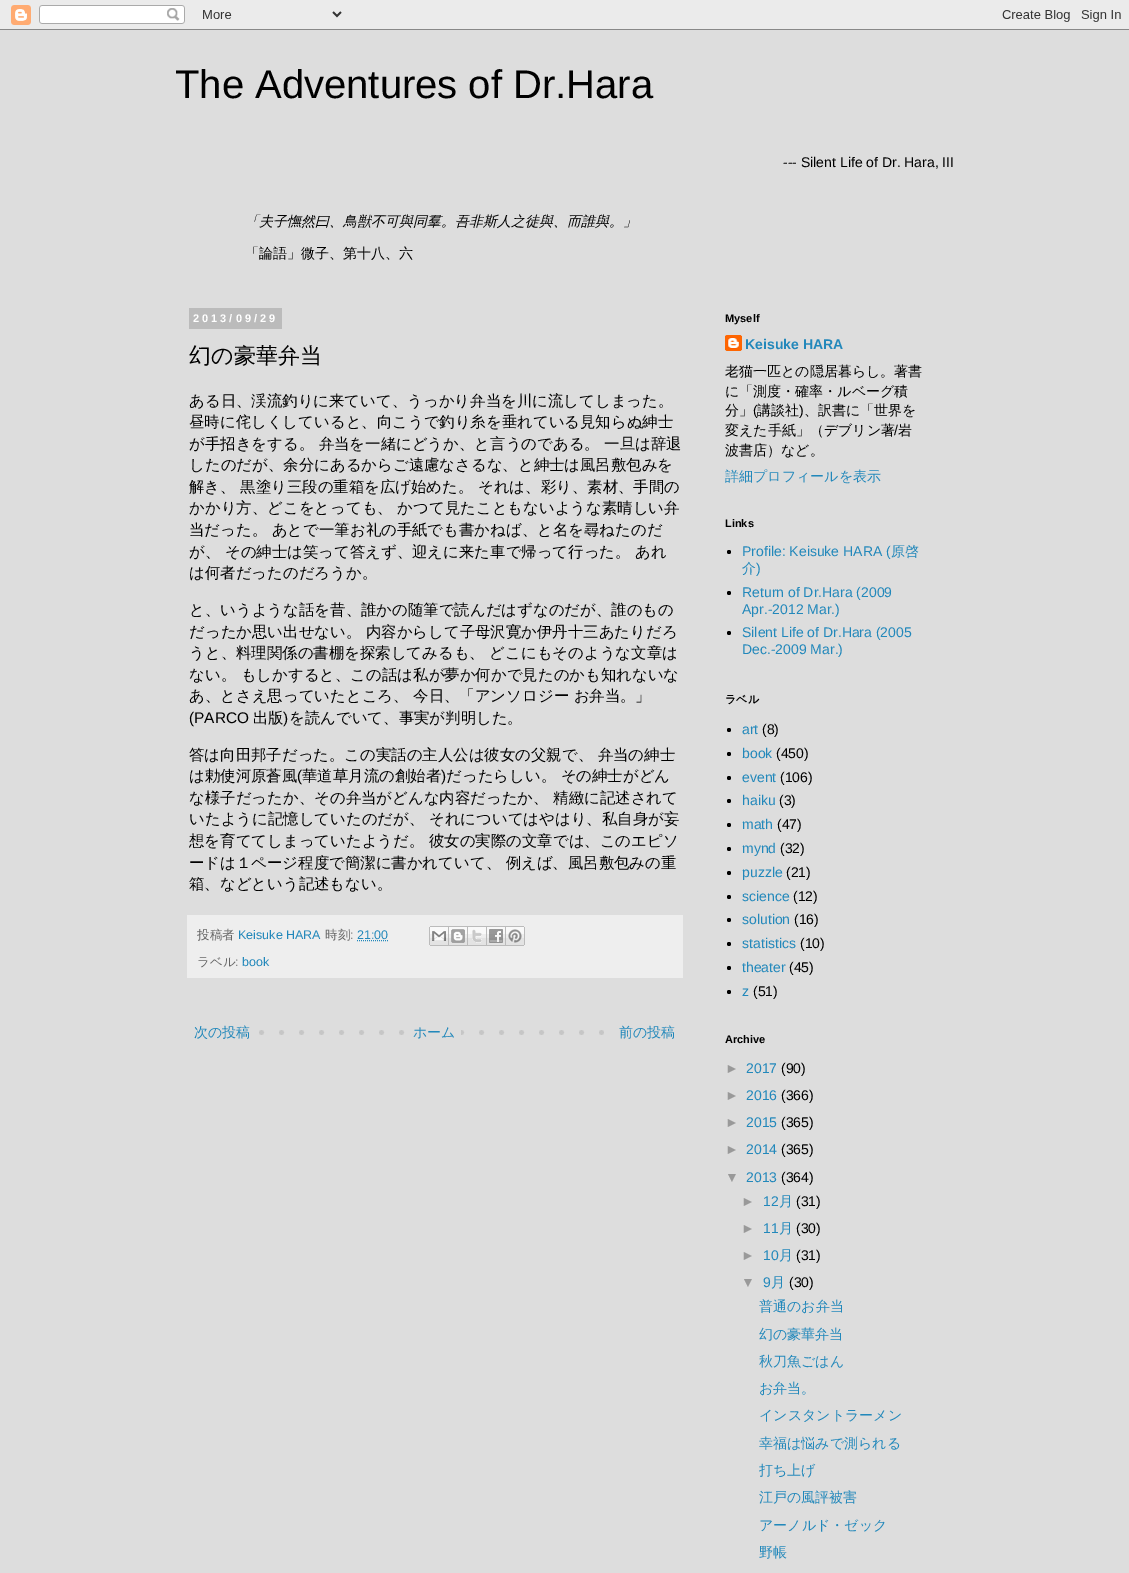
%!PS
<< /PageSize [1129 1573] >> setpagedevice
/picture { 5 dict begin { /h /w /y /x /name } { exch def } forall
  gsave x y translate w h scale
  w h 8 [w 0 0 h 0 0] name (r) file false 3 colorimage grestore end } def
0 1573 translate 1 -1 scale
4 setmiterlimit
0.867 setgray
0 0 1129 1573 rectfill
(img1.rgb) 0 0 1129 30 picture
/LiberationSans-Regular [40 0 0 -40 0 0] selectfont
0 setgray
175 98 moveto (The Adventures of Dr.Hara) show
/LiberationSans-Regular [14 0 0 -14 0 0] selectfont
783 167 moveto (--- Silent Life of Dr. Hara, III) show
/WenQuanYiZenHei-MediumItalic [14 0 0 -14 0 0] selectfont
245 226 moveto (「夫子憮然曰、鳥獣不可與同羣。吾非斯人之徒與、而誰與。」) show
/WenQuanYiZenHei-Medium [14 0 0 -14 0 0] selectfont
245 258 moveto (「論語」微子、第十八、六) show
0.733 setgray
189 308 93 21 rectfill
/LiberationSans-Bold [11 0 0 -11 0 0] selectfont
1 setgray
193 322 moveto 3 0 (2013/09/29) ashow
/WenQuanYiZenHei-Medium [22 0 0 -22 0 0] selectfont
0 setgray
189 363 moveto (幻の豪華弁当) show
/WenQuanYiZenHei-Medium [15.4 0 0 -15.4 0 0] selectfont
189 406 moveto (ある日、渓流釣りに来ていて、うっかり弁当を川に流してしまった。) show
189 427 moveto (昼時に侘しくしていると、向こうで釣り糸を垂れている見知らぬ紳士) show
189 449 moveto (が手招きをする。 弁当を一緒にどうか、と言うのである。 一旦は辞退) show
189 470 moveto (したのだが、余分にあるからご遠慮なさるな、と紳士は風呂敷包みを) show
189 492 moveto (解き、 黒塗り三段の重箱を広げ始めた。 それは、彩り、素材、手間の) show
189 513 moveto (かかり方、どこをとっても、 かつて見たこともないような素晴しい弁) show
189 535 moveto (当だった。 あとで一筆お礼の手紙でも書かねば、と名を尋ねたのだ) show
189 557 moveto (が、 その紳士は笑って答えず、迎えに来た車で帰って行った。 あれ) show
189 578 moveto (は何者だったのだろうか。) show
189 615 moveto (と、いうような話を昔、誰かの随筆で読んだはずなのだが、誰のもの) show
189 637 moveto (だったか思い出せない。 内容からして子母沢寛か伊丹十三あたりだろ) show
189 658 moveto (うと、料理関係の書棚を探索してみるも、 どこにもそのような文章は) show
189 680 moveto (ない。 もしかすると、この話は私が夢か何かで見たのかも知れないな) show
189 701 moveto (あ、とさえ思っていたところ、 今日、「アンソロジー お弁当。」) show
/LiberationSans-Regular [15.4 0 0 -15.4 0 0] selectfont
189 723 moveto (\(PARCO) show
/WenQuanYiZenHei-Medium [15.4 0 0 -15.4 0 0] selectfont
253 723 moveto (出版) show
/LiberationSans-Regular [15.4 0 0 -15.4 0 0] selectfont
283 723 moveto (\)) show
/WenQuanYiZenHei-Medium [15.4 0 0 -15.4 0 0] selectfont
289 723 moveto (を読んでいて、事実が判明した。) show
189 760 moveto (答は向田邦子だった。この実話の主人公は彼女の父親で、 弁当の紳士) show
189 781 moveto (は勅使河原蒼風) show
/LiberationSans-Regular [15.4 0 0 -15.4 0 0] selectfont
297 781 moveto (\() show
/WenQuanYiZenHei-Medium [15.4 0 0 -15.4 0 0] selectfont
302 781 moveto (華道草月流の創始者) show
/LiberationSans-Regular [15.4 0 0 -15.4 0 0] selectfont
441 781 moveto (\)) show
/WenQuanYiZenHei-Medium [15.4 0 0 -15.4 0 0] selectfont
446 781 moveto (だったらしい。 その紳士がどん) show
189 803 moveto (な様子だったか、その弁当がどんな内容だったか、 精緻に記述されて) show
189 824 moveto (いたように記憶していたのだが、 それについてはやはり、私自身が妄) show
189 846 moveto (想を育ててしまっていたようだ。 彼女の実際の文章では、このエピソ) show
189 868 moveto (ードは１ページ程度で簡潔に書かれていて、 例えば、風呂敷包みの重) show
189 889 moveto (箱、などという記述もない。) show
0.933 setgray
187 915 496 63 rectfill
/WenQuanYiZenHei-Medium [12.5 0 0 -12.5 0 0] selectfont
0.4 setgray
197 939 moveto (投稿者) show
/LiberationSans-Regular [12.5 0 0 -12.5 0 0] selectfont
0.133 0.533 0.733 setrgbcolor
238 939 moveto (Keisuke HARA) show
/WenQuanYiZenHei-Medium [12.5 0 0 -12.5 0 0] selectfont
0.4 setgray
325 939 moveto (時刻) show
/LiberationSans-Regular [12.5 0 0 -12.5 0 0] selectfont
350 939 moveto (:) show
0.133 0.533 0.733 setrgbcolor
357 939 moveto (21:00) show
[1 1] 0 setdash
newpath 357 940.5 moveto 388.5 940.5 lineto stroke
(img2.rgb) 429 926 20 20 picture
(img3.rgb) 449 926 19 20 picture
(img4.rgb) 468 926 19 20 picture
(img5.rgb) 487 926 19 20 picture
(img6.rgb) 506 926 19 20 picture
/WenQuanYiZenHei-Medium [12.5 0 0 -12.5 0 0] selectfont
0.4 setgray
197 966 moveto (ラベル) show
/LiberationSans-Regular [12.5 0 0 -12.5 0 0] selectfont
235 966 moveto (:) show
0.133 0.533 0.733 setrgbcolor
242 966 moveto (book) show
(img7.rgb) 259 1030 345 5 picture
/WenQuanYiZenHei-Medium [14 0 0 -14 0 0] selectfont
194 1037 moveto (次の投稿) show
0.867 setgray
419 1030 42 5 rectfill
0.133 0.533 0.733 setrgbcolor
413 1037 moveto (ホーム) show
619 1037 moveto (前の投稿) show
/LiberationSans-Bold [11 0 0 -11 0 0] selectfont
0 setgray
725 322 moveto (Myself) show
(img8.rgb) 725 335 17 16 picture
/LiberationSans-Bold [14 0 0 -14 0 0] selectfont
0.133 0.533 0.733 setrgbcolor
745 349 moveto (Keisuke HARA) show
/WenQuanYiZenHei-Medium [14 0 0 -14 0 0] selectfont
0 setgray
725 376 moveto (老猫一匹との隠居暮らし。著書) show
725 396 moveto (に「測度・確率・ルベーグ積) show
725 415 moveto (分」) show
/LiberationSans-Regular [14 0 0 -14 0 0] selectfont
753 415 moveto (\() show
/WenQuanYiZenHei-Medium [14 0 0 -14 0 0] selectfont
757 415 moveto (講談社) show
/LiberationSans-Regular [14 0 0 -14 0 0] selectfont
799 415 moveto (\)) show
/WenQuanYiZenHei-Medium [14 0 0 -14 0 0] selectfont
804 415 moveto (、訳書に「世界を) show
725 435 moveto (変えた手紙」（デブリン著) show
/LiberationSans-Regular [14 0 0 -14 0 0] selectfont
894 435 moveto (/) show
/WenQuanYiZenHei-Medium [14 0 0 -14 0 0] selectfont
898 435 moveto (岩) show
725 455 moveto (波書店）など。) show
0.133 0.533 0.733 setrgbcolor
725 481 moveto (詳細プロフィールを表示) show
/LiberationSans-Bold [11 0 0 -11 0 0] selectfont
0 setgray
725 527 moveto (Links) show
newpath 729 552 2 0 360 arc closepath fill
/LiberationSans-Regular [14 0 0 -14 0 0] selectfont
0.133 0.533 0.733 setrgbcolor
742 556 moveto (Profile: Keisuke HARA \() show
/WenQuanYiZenHei-Medium [14 0 0 -14 0 0] selectfont
891 556 moveto (原啓) show
742 573 moveto (介) show
/LiberationSans-Regular [14 0 0 -14 0 0] selectfont
756 573 moveto (\)) show
0 setgray
newpath 729 593 2 0 360 arc closepath fill
0.133 0.533 0.733 setrgbcolor
742 597 moveto (Return of Dr.Hara \(2009) show
742 614 moveto (Apr.-2012 Mar.\)) show
0 setgray
newpath 729 633 2 0 360 arc closepath fill
0.133 0.533 0.733 setrgbcolor
742 637 moveto (Silent Life of Dr.Hara \(2005) show
742 654 moveto (Dec.-2009 Mar.\)) show
/WenQuanYiZenHei-Bold [11 0 0 -11 0 0] selectfont
0 setgray
725 703 moveto (ラベル) show
newpath 729 730 2 0 360 arc closepath fill
/LiberationSans-Regular [14 0 0 -14 0 0] selectfont
0.133 0.533 0.733 setrgbcolor
742 734 moveto (art) show
0 setgray
762 734 moveto (\(8\)) show
newpath 729 754 2 0 360 arc closepath fill
0.133 0.533 0.733 setrgbcolor
742 758 moveto (book) show
0 setgray
776 758 moveto (\(450\)) show
newpath 729 778 2 0 360 arc closepath fill
0.133 0.533 0.733 setrgbcolor
742 782 moveto (event) show
0 setgray
780 782 moveto (\(106\)) show
newpath 729 801 2 0 360 arc closepath fill
0.133 0.533 0.733 setrgbcolor
742 805 moveto (haiku) show
0 setgray
779 805 moveto (\(3\)) show
newpath 729 825 2 0 360 arc closepath fill
0.133 0.533 0.733 setrgbcolor
742 829 moveto (math) show
0 setgray
777 829 moveto (\(47\)) show
newpath 729 849 2 0 360 arc closepath fill
0.133 0.533 0.733 setrgbcolor
742 853 moveto (mynd) show
0 setgray
780 853 moveto (\(32\)) show
newpath 729 873 2 0 360 arc closepath fill
0.133 0.533 0.733 setrgbcolor
742 877 moveto (puzzle) show
0 setgray
786 877 moveto (\(21\)) show
newpath 729 897 2 0 360 arc closepath fill
0.133 0.533 0.733 setrgbcolor
742 901 moveto (science) show
0 setgray
793 901 moveto (\(12\)) show
newpath 729 920 2 0 360 arc closepath fill
0.133 0.533 0.733 setrgbcolor
742 924 moveto (solution) show
0 setgray
794 924 moveto (\(16\)) show
newpath 729 944 2 0 360 arc closepath fill
0.133 0.533 0.733 setrgbcolor
742 948 moveto (statistics) show
0 setgray
800 948 moveto (\(10\)) show
newpath 729 968 2 0 360 arc closepath fill
0.133 0.533 0.733 setrgbcolor
742 972 moveto (theater) show
0 setgray
789 972 moveto (\(45\)) show
newpath 729 992 2 0 360 arc closepath fill
0.133 0.533 0.733 setrgbcolor
742 996 moveto (z) show
0 setgray
753 996 moveto (\(51\)) show
/LiberationSans-Bold [11 0 0 -11 0 0] selectfont
725 1043 moveto (Archive) show
/LiberationSans-Regular [14 0 0 -14 0 0] selectfont
0.6 setgray
725 1073 moveto (►) show
0.133 0.533 0.733 setrgbcolor
746 1073 moveto (2017) show
0 setgray
781 1073 moveto (\(90\)) show
0.6 setgray
725 1100 moveto (►) show
0.133 0.533 0.733 setrgbcolor
746 1100 moveto (2016) show
0 setgray
781 1100 moveto (\(366\)) show
0.6 setgray
725 1127 moveto (►) show
0.133 0.533 0.733 setrgbcolor
746 1127 moveto (2015) show
0 setgray
781 1127 moveto (\(365\)) show
0.6 setgray
725 1154 moveto (►) show
0.133 0.533 0.733 setrgbcolor
746 1154 moveto (2014) show
0 setgray
781 1154 moveto (\(365\)) show
0.6 setgray
725 1182 moveto (▼) show
0.133 0.533 0.733 setrgbcolor
746 1182 moveto (2013) show
0 setgray
781 1182 moveto (\(364\)) show
0.6 setgray
741 1206 moveto (►) show
0.133 0.533 0.733 setrgbcolor
763 1206 moveto (12) show
/WenQuanYiZenHei-Medium [14 0 0 -14 0 0] selectfont
779 1206 moveto (月) show
/LiberationSans-Regular [14 0 0 -14 0 0] selectfont
0 setgray
796 1206 moveto (\(31\)) show
0.6 setgray
741 1233 moveto (►) show
0.133 0.533 0.733 setrgbcolor
763 1233 moveto (11) show
/WenQuanYiZenHei-Medium [14 0 0 -14 0 0] selectfont
779 1233 moveto (月) show
/LiberationSans-Regular [14 0 0 -14 0 0] selectfont
0 setgray
796 1233 moveto (\(30\)) show
0.6 setgray
741 1260 moveto (►) show
0.133 0.533 0.733 setrgbcolor
763 1260 moveto (10) show
/WenQuanYiZenHei-Medium [14 0 0 -14 0 0] selectfont
779 1260 moveto (月) show
/LiberationSans-Regular [14 0 0 -14 0 0] selectfont
0 setgray
796 1260 moveto (\(31\)) show
0.6 setgray
741 1287 moveto (▼) show
0.133 0.533 0.733 setrgbcolor
763 1287 moveto (9) show
/WenQuanYiZenHei-Medium [14 0 0 -14 0 0] selectfont
771 1287 moveto (月) show
/LiberationSans-Regular [14 0 0 -14 0 0] selectfont
0 setgray
789 1287 moveto (\(30\)) show
/WenQuanYiZenHei-Medium [14 0 0 -14 0 0] selectfont
0.133 0.533 0.733 setrgbcolor
759 1311 moveto (普通のお弁当) show
759 1339 moveto (幻の豪華弁当) show
759 1366 moveto (秋刀魚ごはん) show
759 1393 moveto (お弁当。) show
759 1420 moveto (インスタントラーメン) show
759 1448 moveto (幸福は悩みで測られる) show
759 1475 moveto (打ち上げ) show
759 1502 moveto (江戸の風評被害) show
759 1530 moveto (アーノルド・ゼック) show
759 1557 moveto (野帳) show
showpage
